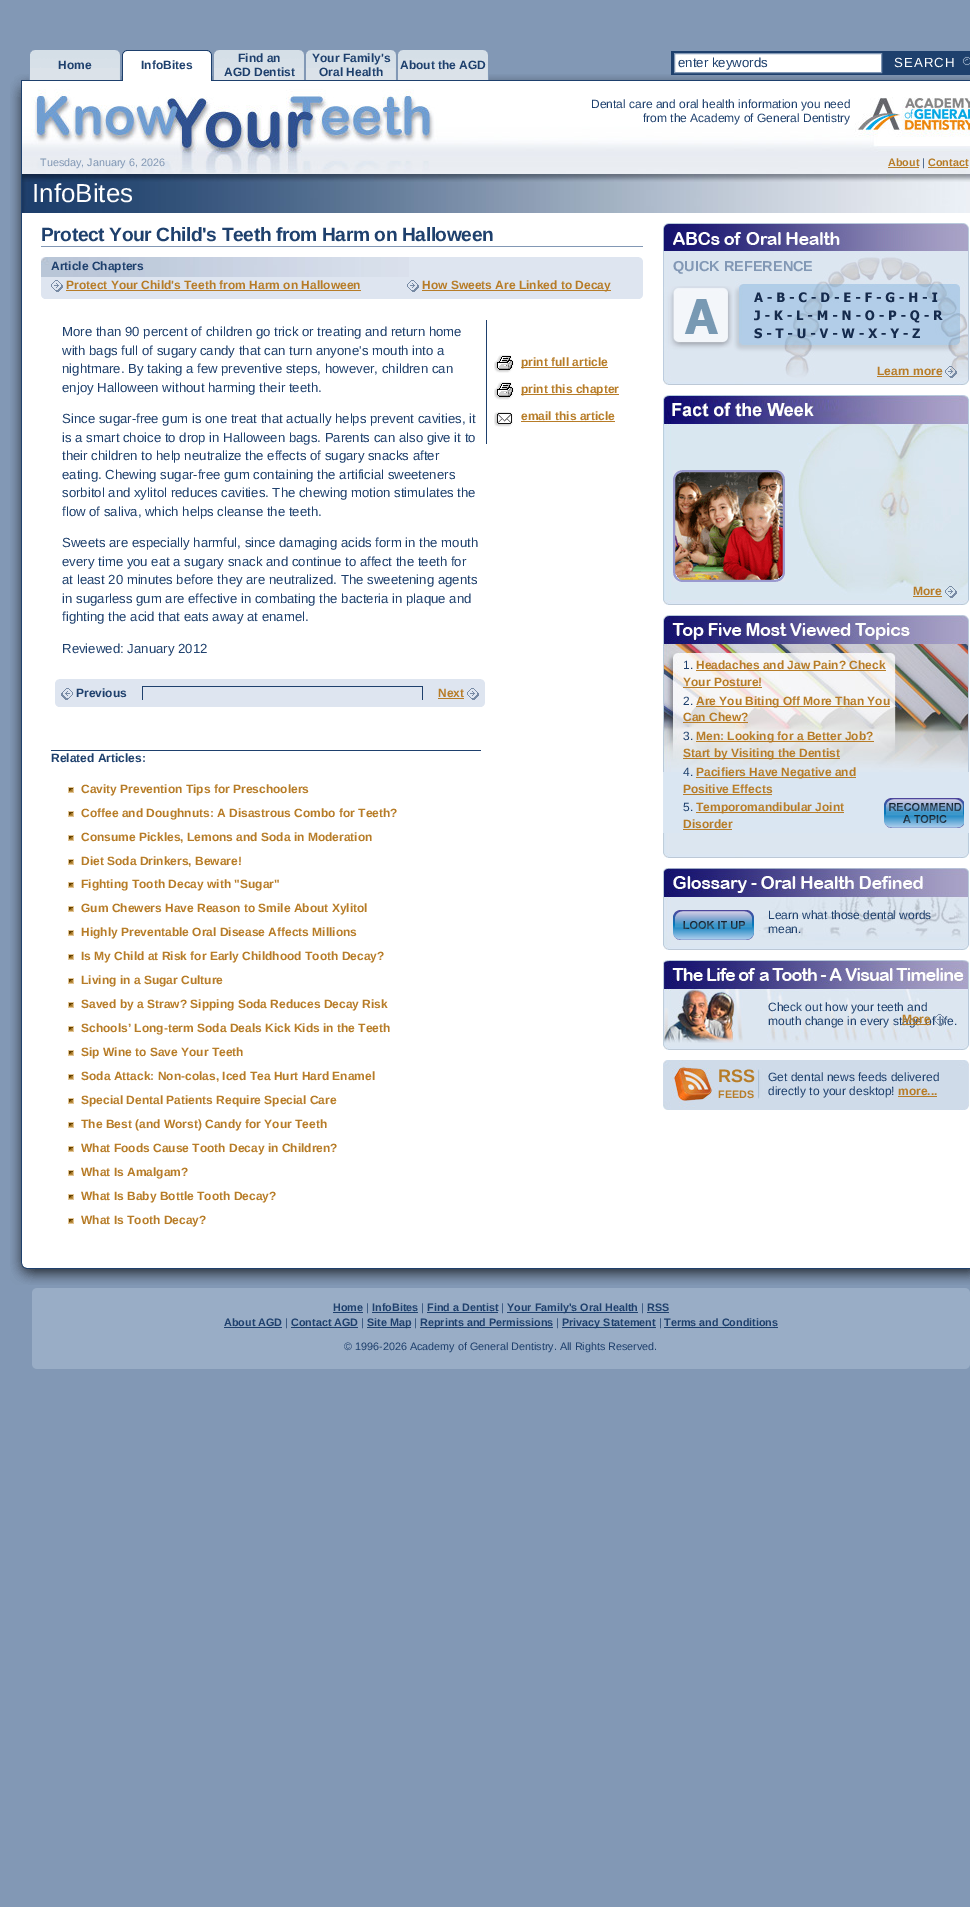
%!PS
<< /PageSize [970 1907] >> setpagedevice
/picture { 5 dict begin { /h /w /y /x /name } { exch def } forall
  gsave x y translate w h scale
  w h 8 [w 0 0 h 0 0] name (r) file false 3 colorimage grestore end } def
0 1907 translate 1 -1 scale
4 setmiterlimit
0.51 0.596 0.71 setrgbcolor
0 0 970 1907 rectfill
(img1.rgb) 14 74 956 7 picture
(img2.rgb) 29 50 92 30 picture
/LiberationSans-Bold [12 0 0 -12 0 0] selectfont
0.118 0.251 0.427 setrgbcolor
58 69 moveto (Home) show
(img3.rgb) 121 50 92 31 picture
141 69 moveto (InfoBites) show
(img2.rgb) 213 50 92 30 picture
238 62 moveto (Find an) show
224 76 moveto (AGD Dentist) show
(img2.rgb) 305 50 92 30 picture
312 62 moveto (Your Family's) show
319 76 moveto (Oral Health) show
(img2.rgb) 397 50 92 30 picture
400 69 moveto (About the AGD) show
671 51 299 24 rectfill
1 setgray
newpath 674.5 53.5 moveto 881.5 53.5 lineto 881.5 72.5 lineto 674.5 72.5 lineto closepath gsave fill grestore
0.51 0.596 0.71 setrgbcolor
stroke
/LiberationSans-Regular [13.25 0 0 -13.25 0 0] selectfont
0.118 0.251 0.427 setrgbcolor
678 67 moveto (enter keywords) show
1 setgray
894 67 moveto 1 0 (SEARCH) ashow
(img4.rgb) 962 56 8 10 picture
(img5.rgb) 10 98 960 1160 picture
(img6.rgb) 10 81 12 17 picture
(img7.rgb) 22 81 948 93 picture
/LiberationSans-Regular [12 0 0 -12 0 0] selectfont
0.118 0.251 0.427 setrgbcolor
591 108 moveto (Dental care and oral health information you need) show
643 122 moveto (from the Academy of General Dentistry) show
/LiberationSans-Regular [10.8 0 0 -10.8 0 0] selectfont
0.51 0.596 0.71 setrgbcolor
40 166 moveto (Tuesday, January 6, 2026) show
/LiberationSans-Bold [10.8 0 0 -10.8 0 0] selectfont
0.718 0.486 0.153 setrgbcolor
888 166 moveto (About) show
888 167 31 1 rectfill
/LiberationSans-Regular [10.8 0 0 -10.8 0 0] selectfont
0.118 0.251 0.427 setrgbcolor
922 166 moveto (|) show
/LiberationSans-Bold [10.8 0 0 -10.8 0 0] selectfont
0.718 0.486 0.153 setrgbcolor
928 166 moveto (Contact) show
928 167 40 1 rectfill
(img8.rgb) 22 174 948 39 picture
/LiberationSans-Regular [26 0 0 -26 0 0] selectfont
1 setgray
32 202 moveto (InfoBites) show
0.51 0.596 0.71 setrgbcolor
41 246 602 1 rectfill
/LiberationSans-Bold [19.2 0 0 -19.2 0 0] selectfont
0.118 0.251 0.427 setrgbcolor
41 241 moveto -0.4 0 (Protect Your Child's Teeth from Harm on Halloween) ashow
0.871 0.898 0.941 setrgbcolor
41 257 602 42 rectfill
(img9.rgb) 41 295 3 4 picture
(img10.rgb) 640 295 3 4 picture
(img11.rgb) 41 257 368 20 picture
(img12.rgb) 639 257 4 4 picture
/LiberationSans-Bold [12 0 0 -12 0 0] selectfont
0.118 0.251 0.427 setrgbcolor
51 270 moveto (Article Chapters) show
(img13.rgb) 51 280 12 12 picture
0.718 0.486 0.153 setrgbcolor
66 289 moveto (Protect Your Child's Teeth from Harm on Halloween) show
66 290 295 1 rectfill
(img13.rgb) 407 280 12 12 picture
422 290 189 1 rectfill
422 289 moveto (How Sweets Are Linked to Decay) show
/LiberationSans-Regular [13.2 0 0 -13.2 0 0] selectfont
0.118 0.251 0.427 setrgbcolor
62 336 moveto (More than 90 percent of children go trick or treating and return home) show
62 355 moveto (with bags full of sugary candy that can turn anyone's mouth into a) show
62 373 moveto (nightmare. By taking a few preventive steps, however, children can) show
62 392 moveto (enjoy Halloween without harming their teeth.) show
62 423 moveto (Since sugar-free gum is one treat that actually helps prevent cavities, it) show
62 442 moveto (is a smart choice to drop in Halloween bags. Parents can also give it to) show
62 460 moveto (their children to help neutralize the effects of sugary snacks after) show
62 479 moveto (eating. Chewing sugar-free gum containing the artificial sweeteners) show
62 497 moveto (sorbitol and xylitol reduces cavities. The chewing motion stimulates the) show
62 516 moveto (flow of saliva, which helps cleanse the teeth.) show
62 547 moveto (Sweets are especially harmful, since damaging acids form in the mouth) show
62 566 moveto (every time you eat a sugary snack and continue to affect the teeth for) show
62 584 moveto (at least 20 minutes before they are neutralized. The sweetening agents) show
62 603 moveto (in sugarless gum are effective in combating the bacteria in plaque and) show
62 621 moveto (fighting the acid that eats away at enamel.) show
62 653 moveto (Reviewed: January 2012) show
0.871 0.898 0.941 setrgbcolor
55 679 430 28 rectfill
(img9.rgb) 55 703 3 4 picture
(img10.rgb) 482 703 3 4 picture
(img14.rgb) 55 679 4 4 picture
(img12.rgb) 481 679 4 4 picture
0.118 0.251 0.427 setrgbcolor
143 686 279 1 rectfill
(img15.rgb) 61 688 12 12 picture
/LiberationSans-Bold [12 0 0 -12 0 0] selectfont
76 697 moveto (Previous) show
142 686 1 14 rectfill
(img13.rgb) 467 688 12 12 picture
422 686 1 14 rectfill
0.718 0.486 0.153 setrgbcolor
438 697 moveto (Next) show
438 698 26 1 rectfill
0.118 0.251 0.427 setrgbcolor
486 320 1 124 rectfill
(img16.rgb) 494 355 20 18 picture
0.718 0.486 0.153 setrgbcolor
521 367 87 1 rectfill
521 366 moveto (print full article) show
(img16.rgb) 494 382 20 18 picture
521 394 98 1 rectfill
521 393 moveto (print this chapter) show
(img17.rgb) 494 412 19 15 picture
521 420 moveto (email this article) show
521 421 94 1 rectfill
0.118 0.251 0.427 setrgbcolor
51 750 430 1 rectfill
51 762 moveto (Related Articles:) show
(img18.rgb) 68 787 6 6 picture
0.718 0.486 0.153 setrgbcolor
81 793 moveto (Cavity Prevention Tips for Preschoolers) show
(img18.rgb) 68 811 6 6 picture
81 817 moveto (Coffee and Doughnuts: A Disastrous Combo for Teeth?) show
(img18.rgb) 68 835 6 6 picture
81 841 moveto (Consume Pickles, Lemons and Soda in Moderation) show
(img18.rgb) 68 859 6 6 picture
81 865 moveto (Diet Soda Drinkers, Beware!) show
(img18.rgb) 68 882 6 6 picture
81 888 moveto (Fighting Tooth Decay with "Sugar") show
(img18.rgb) 68 906 6 6 picture
81 912 moveto (Gum Chewers Have Reason to Smile About Xylitol) show
(img18.rgb) 68 930 6 6 picture
81 936 moveto (Highly Preventable Oral Disease Affects Millions) show
(img18.rgb) 68 954 6 6 picture
81 960 moveto (Is My Child at Risk for Early Childhood Tooth Decay?) show
(img18.rgb) 68 978 6 6 picture
81 984 moveto (Living in a Sugar Culture) show
(img18.rgb) 68 1002 6 6 picture
81 1008 moveto (Saved by a Straw? Sipping Soda Reduces Decay Risk) show
(img18.rgb) 68 1026 6 6 picture
81 1032 moveto (Schools’ Long-term Soda Deals Kick Kids in the Teeth) show
(img18.rgb) 68 1050 6 6 picture
81 1056 moveto (Sip Wine to Save Your Teeth) show
(img18.rgb) 68 1074 6 6 picture
81 1080 moveto (Soda Attack: Non-colas, Iced Tea Hurt Hard Enamel) show
(img18.rgb) 68 1098 6 6 picture
81 1104 moveto (Special Dental Patients Require Special Care) show
(img18.rgb) 68 1122 6 6 picture
81 1128 moveto (The Best \(and Worst\) Candy for Your Teeth) show
(img18.rgb) 68 1146 6 6 picture
81 1152 moveto (What Foods Cause Tooth Decay in Children?) show
(img18.rgb) 68 1170 6 6 picture
81 1176 moveto (What Is Amalgam?) show
(img18.rgb) 68 1194 6 6 picture
81 1200 moveto (What Is Baby Bottle Tooth Decay?) show
(img18.rgb) 68 1218 6 6 picture
81 1224 moveto (What Is Tooth Decay?) show
(img19.rgb) 663 223 306 157 picture
/LiberationSans-Bold [14.5 0 0 -14.5 0 0] selectfont
0.51 0.596 0.71 setrgbcolor
673 271 moveto (QUICK REFERENCE) show
(img20.rgb) 669 286 64 62 picture
(img21.rgb) 754 292 18 10 picture
(img22.rgb) 777 292 17 10 picture
(img23.rgb) 798 292 18 11 picture
(img24.rgb) 821 292 18 10 picture
(img25.rgb) 844 292 17 10 picture
(img26.rgb) 865 292 16 10 picture
(img27.rgb) 885 292 19 11 picture
(img28.rgb) 909 292 18 10 picture
(img29.rgb) 932 292 6 10 picture
(img30.rgb) 754 310 16 11 picture
(img31.rgb) 774 310 18 10 picture
(img32.rgb) 797 310 16 10 picture
(img33.rgb) 817 310 21 10 picture
(img34.rgb) 842 310 19 10 picture
(img35.rgb) 865 310 18 11 picture
(img36.rgb) 883 310 22 10 picture
(img37.rgb) 905 310 22 13 picture
(img38.rgb) 927 310 16 10 picture
(img39.rgb) 754 328 18 11 picture
(img40.rgb) 775 328 18 10 picture
(img41.rgb) 797 328 19 11 picture
(img42.rgb) 819 328 19 10 picture
(img43.rgb) 841 328 20 10 picture
(img44.rgb) 861 328 22 10 picture
(img45.rgb) 883 328 22 10 picture
(img46.rgb) 905 328 15 10 picture
/LiberationSans-Bold [12 0 0 -12 0 0] selectfont
0.718 0.486 0.153 setrgbcolor
877 375 moveto (Learn more) show
877 376 65 1 rectfill
(img47.rgb) 945 366 12 12 picture
(img48.rgb) 663 380 306 5 picture
(img49.rgb) 663 395 306 205 picture
(img50.rgb) 673 470 112 112 picture
913 595 moveto (More) show
913 596 29 1 rectfill
(img51.rgb) 945 586 12 12 picture
(img48.rgb) 663 600 306 5 picture
(img52.rgb) 663 833 306 20 picture
0.855 0.902 0.949 setrgbcolor
663 772 306 61 rectfill
(img53.rgb) 663 615 306 157 picture
/LiberationSans-Regular [12 0 0 -12 0 0] selectfont
0.118 0.251 0.427 setrgbcolor
683 669 moveto (1.) show
/LiberationSans-Bold [12 0 0 -12 0 0] selectfont
0.718 0.486 0.153 setrgbcolor
696 669 moveto (Headaches and Jaw Pain? Check) show
696 670 190 1 rectfill
683 686 moveto (Your Posture!) show
683 687 79 1 rectfill
/LiberationSans-Regular [12 0 0 -12 0 0] selectfont
0.118 0.251 0.427 setrgbcolor
683 705 moveto (2.) show
0.718 0.486 0.153 setrgbcolor
696 706 194 1 rectfill
/LiberationSans-Bold [12 0 0 -12 0 0] selectfont
696 705 moveto (Are You Biting Off More Than You) show
683 721 moveto (Can Chew?) show
683 722 65 1 rectfill
/LiberationSans-Regular [12 0 0 -12 0 0] selectfont
0.118 0.251 0.427 setrgbcolor
683 740 moveto (3.) show
0.718 0.486 0.153 setrgbcolor
696 741 178 1 rectfill
/LiberationSans-Bold [12 0 0 -12 0 0] selectfont
696 740 moveto (Men: Looking for a Better Job?) show
683 758 157 1 rectfill
683 757 moveto (Start by Visiting the Dentist) show
/LiberationSans-Regular [12 0 0 -12 0 0] selectfont
0.118 0.251 0.427 setrgbcolor
683 776 moveto (4.) show
0.718 0.486 0.153 setrgbcolor
696 777 160 1 rectfill
/LiberationSans-Bold [12 0 0 -12 0 0] selectfont
696 776 moveto (Pacifiers Have Negative and) show
683 793 moveto (Positive Effects) show
683 794 89 1 rectfill
/LiberationSans-Regular [12 0 0 -12 0 0] selectfont
0.118 0.251 0.427 setrgbcolor
683 811 moveto (5.) show
0.718 0.486 0.153 setrgbcolor
696 812 148 1 rectfill
/LiberationSans-Bold [12 0 0 -12 0 0] selectfont
696 811 moveto (Temporomandibular Joint) show
683 828 moveto (Disorder) show
683 829 49 1 rectfill
(img54.rgb) 884 798 80 30 picture
(img48.rgb) 663 853 306 5 picture
(img55.rgb) 663 868 306 77 picture
(img56.rgb) 673 910 81 30 picture
/LiberationSans-Regular [12 0 0 -12 0 0] selectfont
0.118 0.251 0.427 setrgbcolor
768 919 moveto (Learn what those dental words) show
768 933 moveto (mean.) show
(img48.rgb) 663 945 306 5 picture
(img57.rgb) 663 1043 306 2 picture
(img58.rgb) 663 960 306 83 picture
768 1011 moveto (Check out how your teeth and) show
768 1025 moveto (mouth change in every stage of life.) show
/LiberationSans-Bold [12 0 0 -12 0 0] selectfont
0.718 0.486 0.153 setrgbcolor
902 1023 moveto (More) show
902 1024 29 1 rectfill
(img59.rgb) 934 1014 12 12 picture
(img48.rgb) 663 1045 306 5 picture
(img60.rgb) 663 1060 306 50 picture
/LiberationSans-Bold [18 0 0 -18 0 0] selectfont
718 1082 moveto (RSS) show
/LiberationSans-Regular [12 0 0 -12 0 0] selectfont
0.118 0.251 0.427 setrgbcolor
768 1081 moveto (Get dental news feeds delivered) show
768 1095 moveto (directly to your desktop!) show
/LiberationSans-Bold [12 0 0 -12 0 0] selectfont
0.718 0.486 0.153 setrgbcolor
898 1095 moveto (more...) show
898 1096 39 1 rectfill
/LiberationSans-Bold [10.8 0 0 -10.8 0 0] selectfont
718 1098 moveto (FEEDS) show
(img61.rgb) 10 1258 960 27 picture
(img62.rgb) 32 1288 938 81 picture
0.118 0.251 0.427 setrgbcolor
333 1311 moveto (Home) show
333 1312 30 1 rectfill
/LiberationSans-Regular [10.8 0 0 -10.8 0 0] selectfont
366 1311 moveto (|) show
/LiberationSans-Bold [10.8 0 0 -10.8 0 0] selectfont
372 1311 moveto (InfoBites) show
372 1312 46 1 rectfill
/LiberationSans-Regular [10.8 0 0 -10.8 0 0] selectfont
421 1311 moveto (|) show
/LiberationSans-Bold [10.8 0 0 -10.8 0 0] selectfont
427 1311 moveto (Find a Dentist) show
427 1312 71 1 rectfill
/LiberationSans-Regular [10.8 0 0 -10.8 0 0] selectfont
501 1311 moveto (|) show
507 1312 131 1 rectfill
/LiberationSans-Bold [10.8 0 0 -10.8 0 0] selectfont
507 1311 moveto (Your Family's Oral Health) show
/LiberationSans-Regular [10.8 0 0 -10.8 0 0] selectfont
641 1311 moveto (|) show
/LiberationSans-Bold [10.8 0 0 -10.8 0 0] selectfont
647 1311 moveto (RSS) show
647 1312 22 1 rectfill
224 1326 moveto (About AGD) show
224 1327 58 1 rectfill
/LiberationSans-Regular [10.8 0 0 -10.8 0 0] selectfont
285 1326 moveto (|) show
/LiberationSans-Bold [10.8 0 0 -10.8 0 0] selectfont
291 1326 moveto (Contact AGD) show
291 1327 67 1 rectfill
/LiberationSans-Regular [10.8 0 0 -10.8 0 0] selectfont
361 1326 moveto (|) show
367 1327 44 1 rectfill
/LiberationSans-Bold [10.8 0 0 -10.8 0 0] selectfont
367 1326 moveto (Site Map) show
/LiberationSans-Regular [10.8 0 0 -10.8 0 0] selectfont
414 1326 moveto (|) show
420 1327 133 1 rectfill
/LiberationSans-Bold [10.8 0 0 -10.8 0 0] selectfont
420 1326 moveto (Reprints and Permissions) show
/LiberationSans-Regular [10.8 0 0 -10.8 0 0] selectfont
556 1326 moveto (|) show
562 1327 94 1 rectfill
/LiberationSans-Bold [10.8 0 0 -10.8 0 0] selectfont
562 1326 moveto (Privacy Statement) show
/LiberationSans-Regular [10.8 0 0 -10.8 0 0] selectfont
659 1326 moveto (|) show
/LiberationSans-Bold [10.8 0 0 -10.8 0 0] selectfont
664 1326 moveto (Terms and Conditions) show
664 1327 114 1 rectfill
/LiberationSans-Regular [10.8 0 0 -10.8 0 0] selectfont
344 1350 moveto (© 1996-2026 Academy of General Dentistry. All Rights Reserved.) show
showpage
